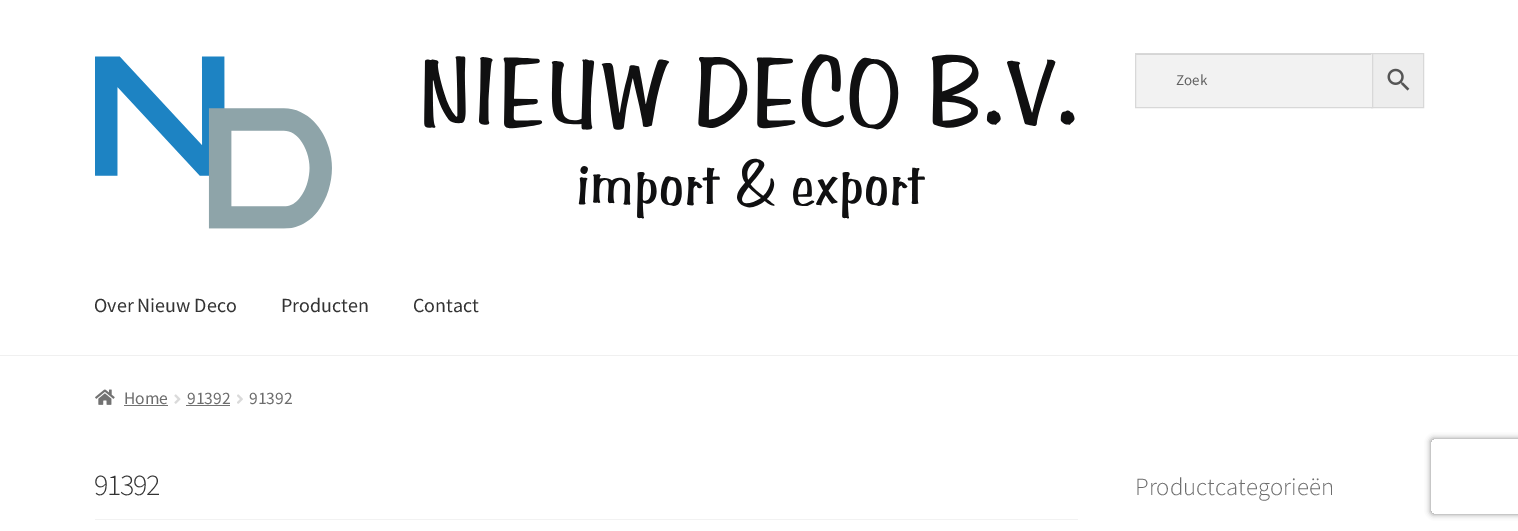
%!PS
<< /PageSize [1518 531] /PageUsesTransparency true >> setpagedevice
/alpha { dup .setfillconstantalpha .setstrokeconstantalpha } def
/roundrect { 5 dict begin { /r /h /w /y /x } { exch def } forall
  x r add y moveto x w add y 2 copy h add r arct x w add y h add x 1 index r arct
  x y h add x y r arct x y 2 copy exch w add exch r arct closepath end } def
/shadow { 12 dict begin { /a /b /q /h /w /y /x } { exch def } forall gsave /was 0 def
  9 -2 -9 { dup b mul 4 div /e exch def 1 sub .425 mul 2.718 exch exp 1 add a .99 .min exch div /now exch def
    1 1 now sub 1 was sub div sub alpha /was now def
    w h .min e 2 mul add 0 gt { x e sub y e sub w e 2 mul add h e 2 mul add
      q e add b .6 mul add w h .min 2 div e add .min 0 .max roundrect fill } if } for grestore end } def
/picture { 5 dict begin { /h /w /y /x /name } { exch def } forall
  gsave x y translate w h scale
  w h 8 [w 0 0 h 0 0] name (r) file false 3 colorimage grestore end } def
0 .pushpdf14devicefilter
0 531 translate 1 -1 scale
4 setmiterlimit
1 setgray
0 0 1518 531 rectfill
0.941 setgray
0 355 1518 1 rectfill
(img1.rgb) 95 54 980 175 picture
0.929 setgray
1373 54 50 53 rectfill
0.847 setgray
1371.5 53.5 52 54 rectstroke
0.949 setgray
1136 54 236 53 rectfill
0.831 setgray
1136 54 235 1 rectfill
0.847 setgray
1135.5 53.5 237 54 rectstroke
/SourceSansPro-Regular [15 0 0 -15 0 0] selectfont
0.38 setgray
1176 85 moveto (Zoek) show
(img2.rgb) 1387 68 23 23 picture
/SourceSansPro-Regular [20 0 0 -20 0 0] selectfont
0.2 setgray
94 312 moveto (Over Nieuw Deco) show
281 312 moveto (Producten) show
413 312 moveto (Contact) show
(img3.rgb) 95 389 20 16 picture
/SourceSansPro-Regular [17.5 0 0 -17.5 0 0] selectfont
0.427 setgray
124 404 moveto (Home) show
0.447 setgray
124 405 44 1 rectfill
(img4.rgb) 174 394 7 10 picture
0.427 setgray
187 404 moveto (91392) show
0.447 setgray
186 405 44 1 rectfill
(img5.rgb) 237 394 6 10 picture
0.427 setgray
249 404 moveto (91392) show
0.949 setgray
95 519 983 1 rectfill
/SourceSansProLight-Light [30 0 0 -30 0 0] selectfont
0.2 setgray
94 495 moveto -1.25 0 (91392) ashow
/SourceSansProLight-Light [24.75 0 0 -24.75 0 0] selectfont
0.427 setgray
1135 495 moveto (Productcategorieën) show
gsave
newpath 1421 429 moveto 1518 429 lineto 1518 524 lineto 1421 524 lineto closepath 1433.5 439 moveto 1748.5 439 lineto 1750 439 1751 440 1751 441.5 curveto 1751 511.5 lineto 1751 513 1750 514 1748.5 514 curveto 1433.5 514 lineto 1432 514 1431 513 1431 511.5 curveto 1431 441.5 lineto 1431 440 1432 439 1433.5 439 curveto closepath eoclip newpath
0.502 setgray
1431 439 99 75 2.5 3 1 shadow
grestore
.poppdf14devicefilter showpage
